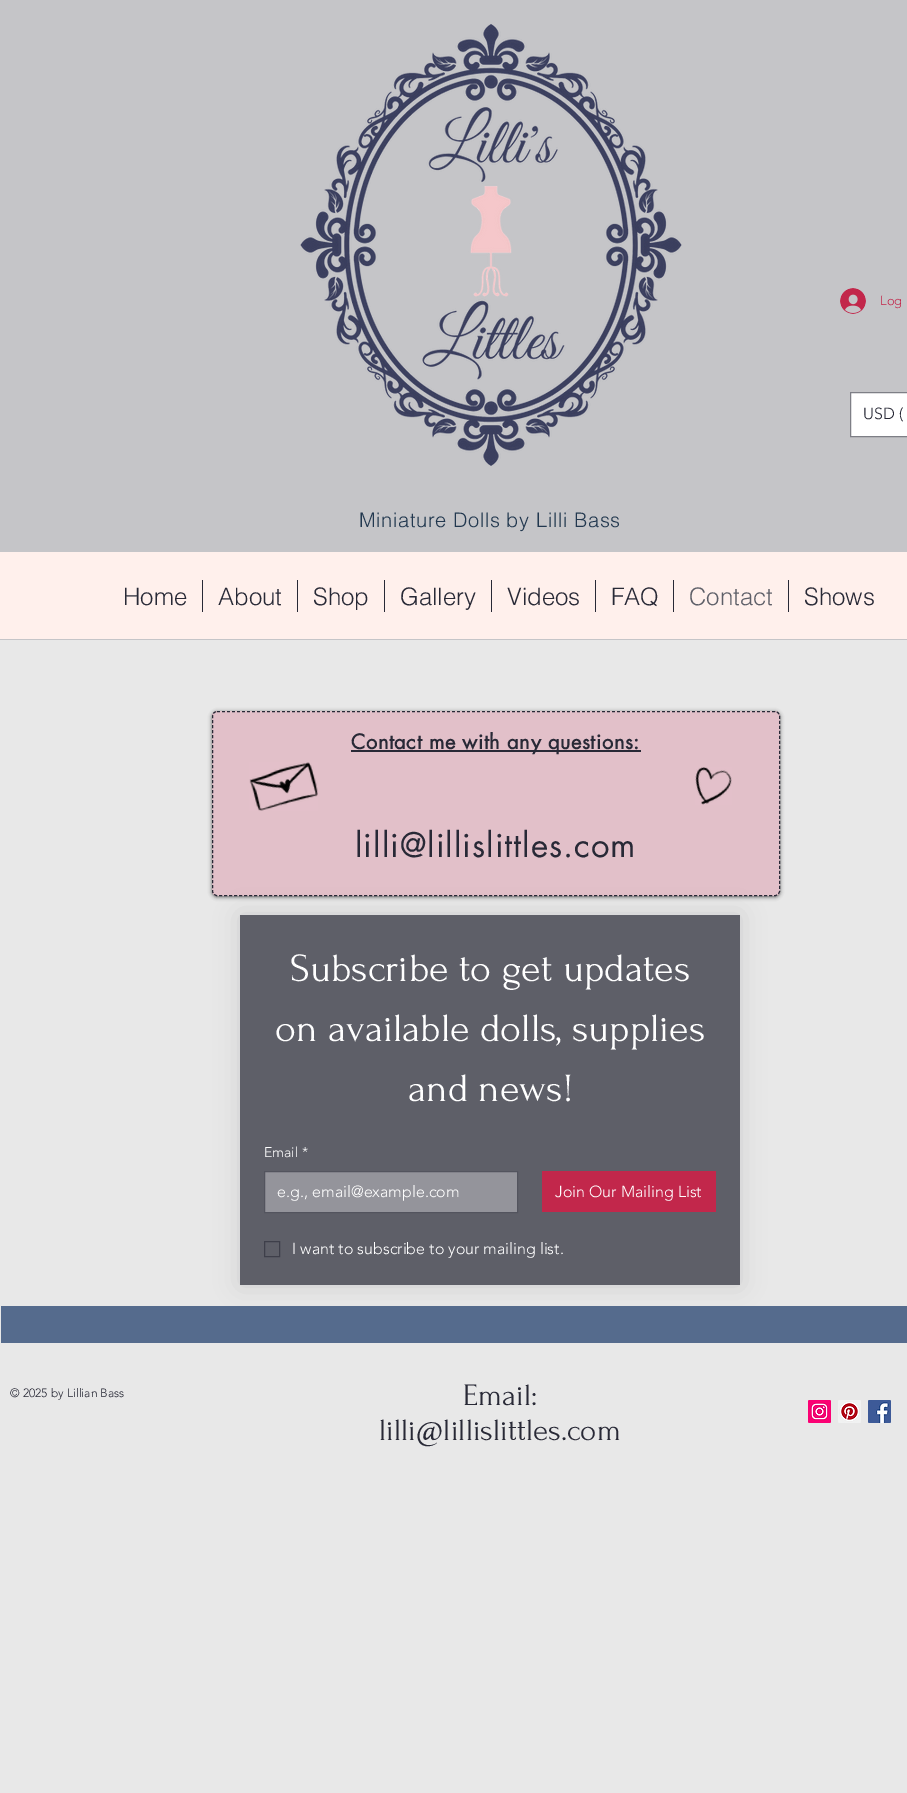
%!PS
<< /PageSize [907 1793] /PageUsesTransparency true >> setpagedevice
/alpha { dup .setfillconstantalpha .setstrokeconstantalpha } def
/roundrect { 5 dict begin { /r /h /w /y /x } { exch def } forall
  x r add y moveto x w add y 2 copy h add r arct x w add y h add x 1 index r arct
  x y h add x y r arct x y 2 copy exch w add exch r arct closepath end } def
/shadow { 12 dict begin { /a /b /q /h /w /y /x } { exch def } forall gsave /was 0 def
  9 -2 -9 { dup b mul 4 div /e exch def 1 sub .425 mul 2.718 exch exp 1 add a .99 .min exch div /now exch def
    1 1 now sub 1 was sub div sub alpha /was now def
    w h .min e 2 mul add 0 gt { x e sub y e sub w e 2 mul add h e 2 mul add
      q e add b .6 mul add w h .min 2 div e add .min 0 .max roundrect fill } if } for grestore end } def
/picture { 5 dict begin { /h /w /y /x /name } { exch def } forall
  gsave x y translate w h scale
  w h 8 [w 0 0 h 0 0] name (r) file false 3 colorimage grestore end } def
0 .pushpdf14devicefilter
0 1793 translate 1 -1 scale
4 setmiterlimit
0.91 setgray
0 0 907 1793 rectfill
0.773 0.773 0.784 setrgbcolor
0 0 907 640 rectfill
(img1.rgb) 300 24 382 442 picture
(img2.rgb) 840 288 26 26 picture
/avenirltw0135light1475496-Light [13 0 0 -13 0 0] selectfont
0.761 0.153 0.294 setrgbcolor
880 305 moveto (Log) show
1 setgray
newpath 850.5 392.5 moveto 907.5 392.5 lineto 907.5 436.5 lineto 850.5 436.5 lineto closepath gsave fill grestore
0.494 0.498 0.525 setrgbcolor
stroke
/avenirltw0135light1475496-Light [16 0 0 -16 0 0] selectfont
0.157 0.161 0.212 setrgbcolor
863 419 moveto (USD \() show
/helvetica-Light [20 0 0 -20 0 0] selectfont
0.133 0.22 0.31 setrgbcolor
359 527 moveto 0.6 0 (Miniature Dolls by Lilli Bass) ashow
1 0.941 0.925 setrgbcolor
0 552 907 87 rectfill
/helvetica-Light [24 0 0 -24 0 0] selectfont
0.157 0.161 0.212 setrgbcolor
123 605 moveto (Home) show
202 580 1 32 rectfill
218 605 moveto (About) show
297 580 1 32 rectfill
313 605 moveto (Shop) show
384 580 1 32 rectfill
400 605 moveto (Gallery) show
491 580 1 32 rectfill
507 605 moveto (Videos) show
595 580 1 32 rectfill
611 605 moveto (FAQ) show
673 580 1 32 rectfill
0.369 0.373 0.408 setrgbcolor
689 605 moveto (Contact) show
0.157 0.161 0.212 setrgbcolor
788 580 1 32 rectfill
804 605 moveto (Shows) show
gsave
newpath 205 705 moveto 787 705 lineto 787 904 lineto 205 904 lineto closepath 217 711 moveto 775 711 lineto 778 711 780 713 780 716 curveto 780 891 lineto 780 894 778 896 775 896 curveto 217 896 lineto 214 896 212 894 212 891 curveto 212 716 lineto 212 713 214 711 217 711 curveto closepath eoclip newpath
0 setgray
212 712 568 185 5 2 0.6 shadow
grestore
0.61 alpha
0.875 0.655 0.714 setrgbcolor
212 711 568 185 5 roundrect fill
1 alpha
0.157 0.161 0.212 setrgbcolor
[3 2] 0 setdash
newpath 217 711.5 moveto 775 711.5 lineto 777.5 711.5 779.5 713.5 779.5 716 curveto 779.5 891 lineto 779.5 893.5 777.5 895.5 775 895.5 curveto 217 895.5 lineto 214.5 895.5 212.5 893.5 212.5 891 curveto 212.5 716 lineto 212.5 713.5 214.5 711.5 217 711.5 curveto closepath stroke
351 750 290 2 rectfill
/futura-Bold [20 0 0 -20 0 0] selectfont
351 749 moveto 0.6 0 (Contact me with any questions:) ashow
(img3.rgb) 249 762 69 49 picture
(img4.rgb) 695 767 37 38 picture
/futura-Regular [33 0 0 -33 0 0] selectfont
355 857 moveto 1 0 (lilli@lillislittles.com) ashow
240 915 500 370 0 12.5 0.15 shadow
0.369 0.373 0.408 setrgbcolor
240 915 500 370 rectfill
/Forum-Regular [40 0 0 -40 0 0] selectfont
1 setgray
290 981 moveto (Subscribe to get updates) show
275 1041 moveto (on available dolls, supplies) show
408 1101 moveto (and news!) show
/avenirltw0135light1475496-Light [14 0 0 -14 0 0] selectfont
264 1157 moveto (Email) show
302 1157 moveto (*) show
0.58 0.58 0.608 setrgbcolor
newpath 264.5 1171.5 moveto 517.5 1171.5 lineto 517.5 1212.5 lineto 264.5 1212.5 lineto closepath gsave fill grestore
0.325 0.329 0.369 setrgbcolor
[] 0 setdash
stroke
/avenirltw0135light1475496-Light [16 0 0 -16 0 0] selectfont
1 setgray
277 1197 moveto (e.g., email@example.com) show
0.761 0.153 0.294 setrgbcolor
542 1171 174 41 rectfill
1 setgray
555 1197 moveto (Join Our Mailing List) show
0.243 0.247 0.29 setrgbcolor
264.5 1241.5 15 15 rectstroke
1 setgray
292 1254 moveto (I want to subscribe to your mailing list.) show
0.333 0.42 0.553 setrgbcolor
1 1306 906 37 rectfill
/avenirltw0135light1475496-Light [12 0 0 -12 0 0] selectfont
0.157 0.161 0.212 setrgbcolor
10 1397 moveto (© 2025 by Lillian Bass) show
/Forum-Regular [31 0 0 -31 0 0] selectfont
463 1405 moveto (Email:) show
379 1440 moveto (lilli@lillislittles.com) show
(img5.rgb) 808 1400 23 23 picture
(img6.rgb) 838 1400 23 23 picture
(img7.rgb) 868 1400 23 23 picture
.poppdf14devicefilter showpage
